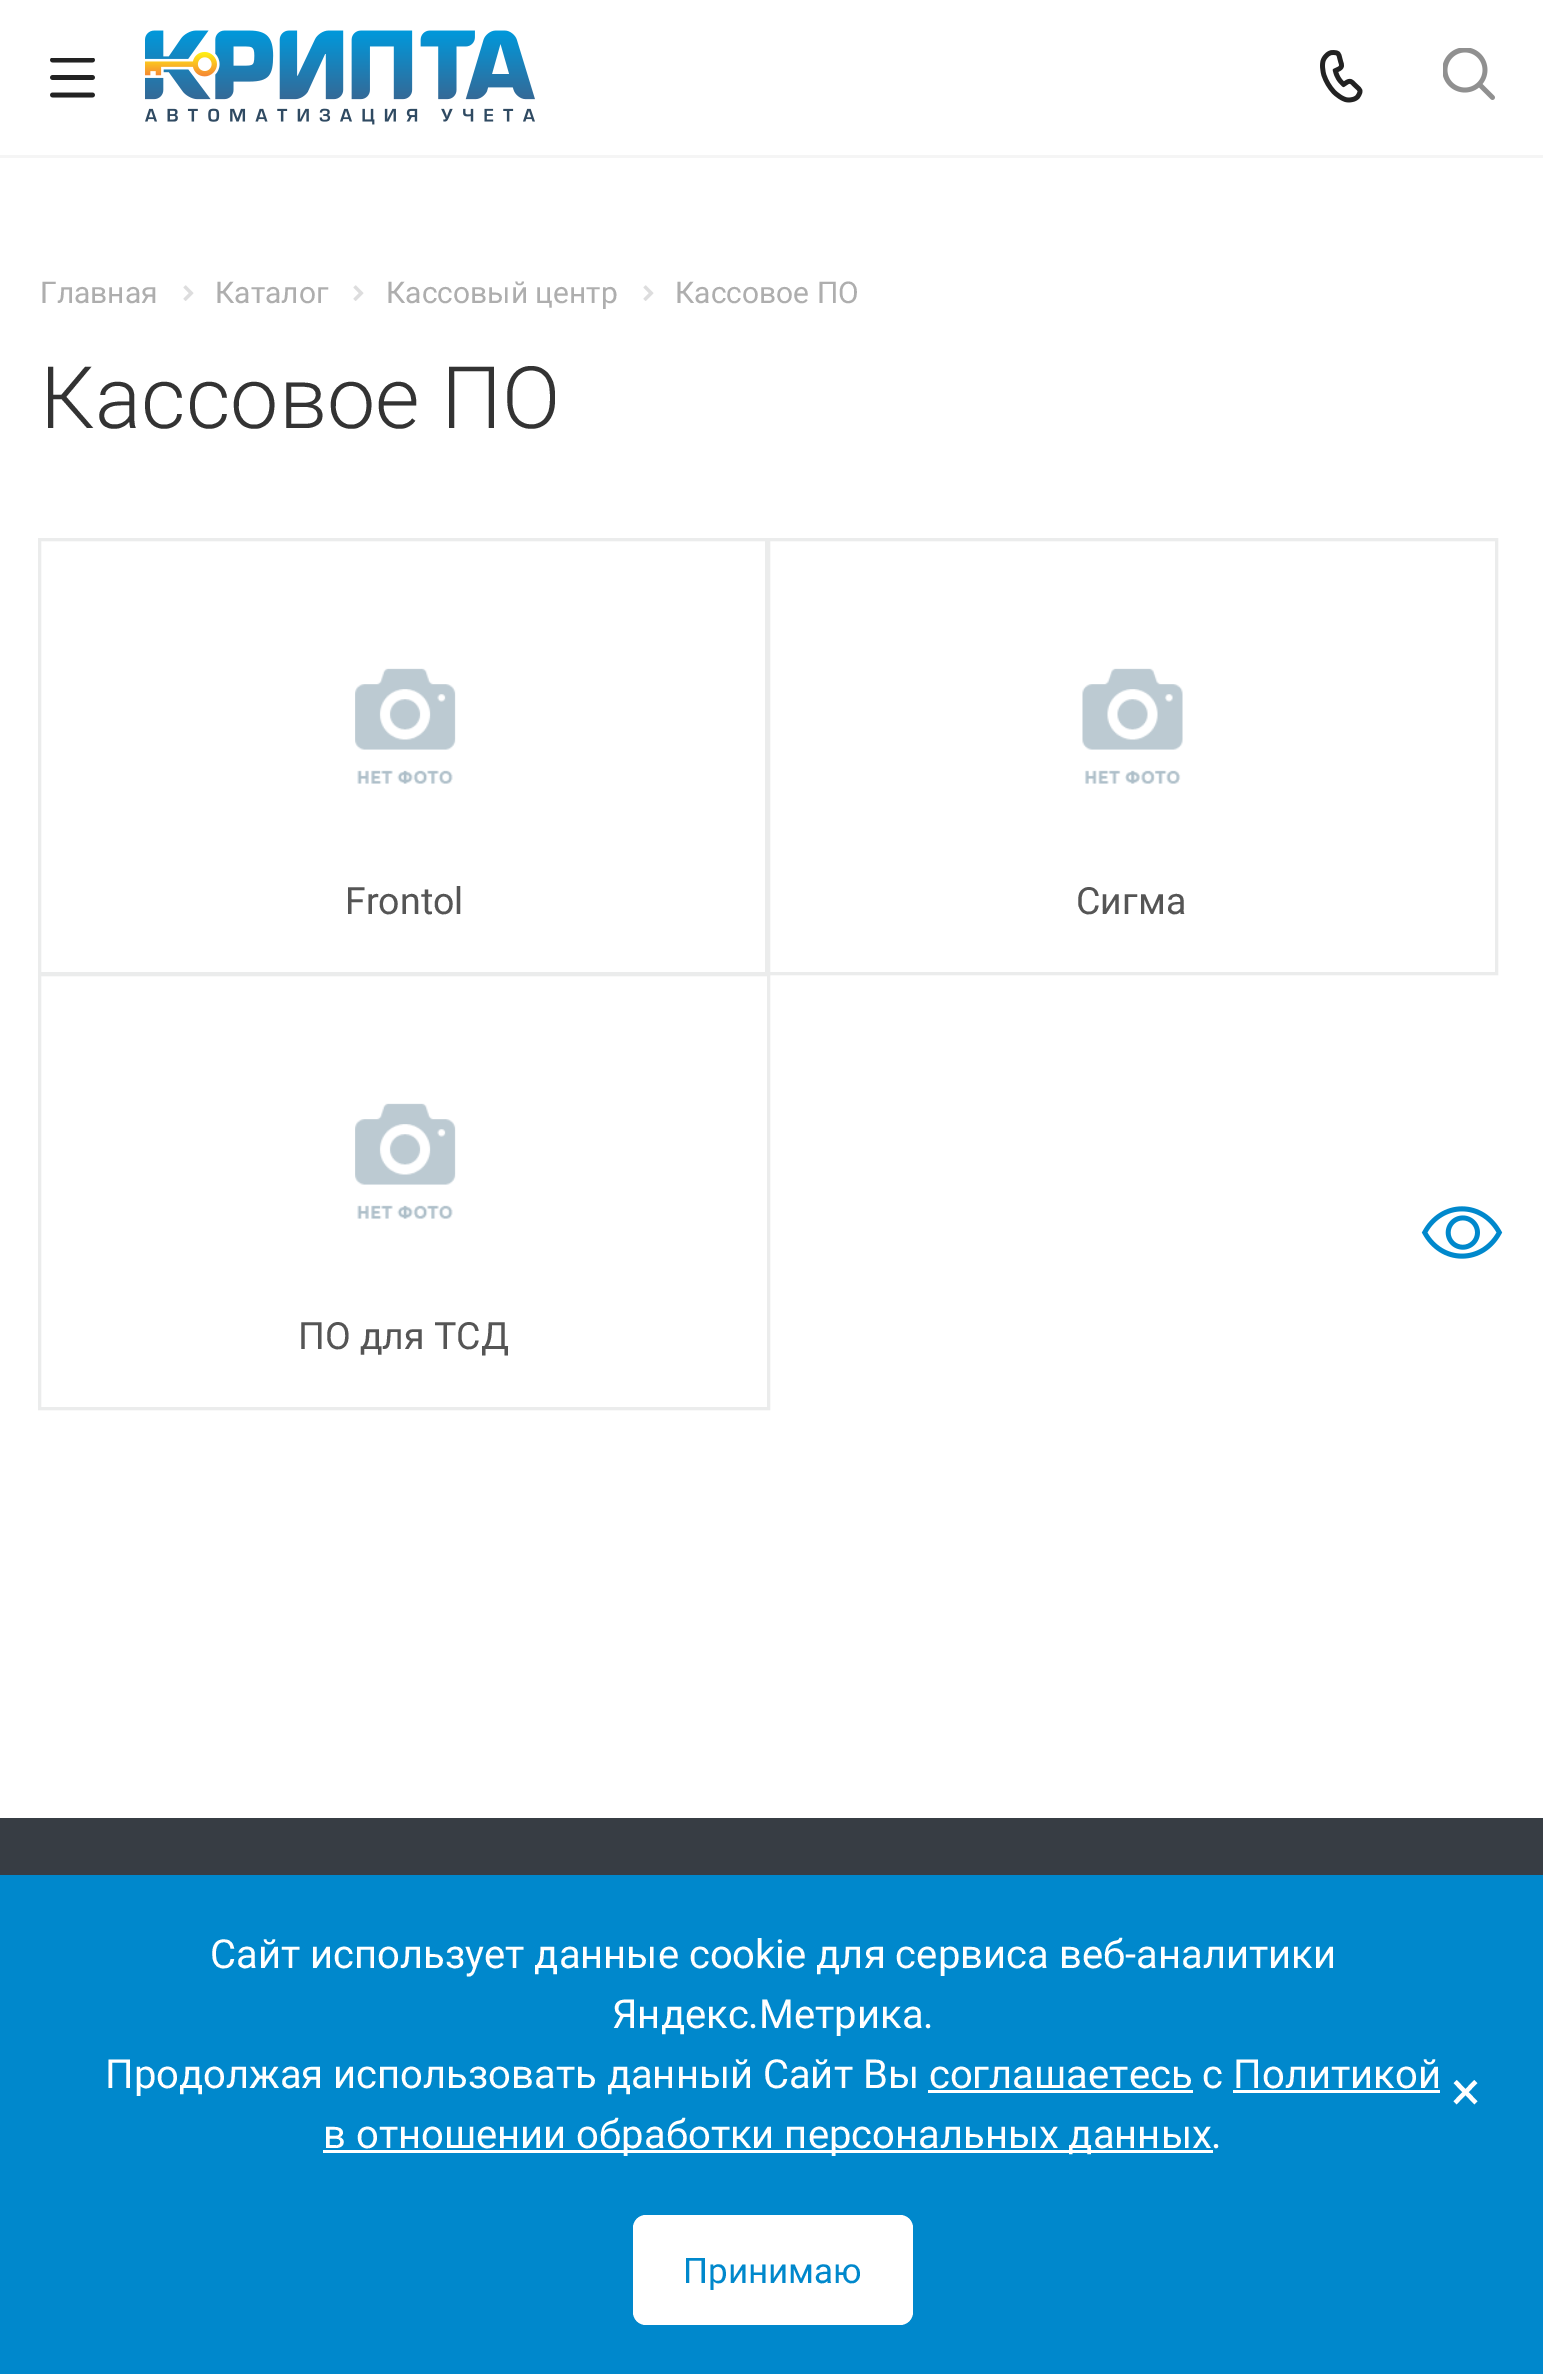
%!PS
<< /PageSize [1543 2374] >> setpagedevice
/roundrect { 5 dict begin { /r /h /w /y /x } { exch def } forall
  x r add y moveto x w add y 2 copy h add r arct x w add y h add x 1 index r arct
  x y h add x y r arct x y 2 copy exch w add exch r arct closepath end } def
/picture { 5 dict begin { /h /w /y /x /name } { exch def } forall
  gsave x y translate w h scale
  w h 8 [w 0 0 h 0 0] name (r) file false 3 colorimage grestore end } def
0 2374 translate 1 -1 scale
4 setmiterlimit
1 setgray
0 0 1543 2374 rectfill
0.961 setgray
0 155 1543 3 rectfill
(img1.rgb) 50 58 45 40 picture
(img2.rgb) 145 30 390 95 picture
(img3.rgb) 1320 50 43 53 picture
(img4.rgb) 1443 48 52 52 picture
/Roboto-Regular [30 0 0 -30 0 0] selectfont
0.682 setgray
40 303 moveto (Главная) show
(img5.rgb) 183 285 11 16 picture
215 303 moveto (Каталог) show
(img5.rgb) 353 285 11 16 picture
386 303 moveto (Кассовый центр) show
(img5.rgb) 643 285 11 16 picture
675 303 moveto (Кассовое ПО) show
/Roboto-Light [86.25 0 0 -86.25 0 0] selectfont
0.2 setgray
40 428 moveto (Кассовое ПО) show
0.922 0.925 0.925 setrgbcolor
3 setlinewidth
39.5 539.5 729 434 rectstroke
(img6.rgb) 355 668 101 116 picture
/Roboto-Regular [37.5 0 0 -37.5 0 0] selectfont
0.333 setgray
345 914 moveto (Frontol) show
0.922 0.925 0.925 setrgbcolor
766.5 539.5 730 434 rectstroke
(img7.rgb) 1082 668 101 116 picture
0.333 setgray
1076 914 moveto (Сигма) show
0.922 0.925 0.925 setrgbcolor
39.5 974.5 729 434 rectstroke
(img6.rgb) 355 1103 101 116 picture
0.333 setgray
298 1349 moveto (ПО для ТСД) show
0.216 0.239 0.267 setrgbcolor
0 1818 1543 57 rectfill
(img8.rgb) 1421 1206 82 53 picture
0 0.533 0.8 setrgbcolor
0 1875 1543 499 rectfill
/Roboto-Regular [40 0 0 -40 0 0] selectfont
1 setgray
210 1968 moveto (Сайт использует данные cookie для сервиса веб-аналитики) show
612 2028 moveto (Яндекс.Метрика.) show
105 2088 moveto (Продолжая использовать данный Сайт Вы соглашаетесь с Политикой) show
928 2090 265 3 rectfill
323 2150 890 3 rectfill
323 2148 moveto (в отношении обработки персональных данных.) show
1233 2090 207 3 rectfill
/Roboto-Regular [55 0 0 -55 0 0] selectfont
1451 2110 moveto (×) show
633 2215 280 110 13 roundrect fill
/Roboto-Regular [35 0 0 -35 0 0] selectfont
0 0.533 0.8 setrgbcolor
683 2283 moveto (Принимаю) show
showpage
